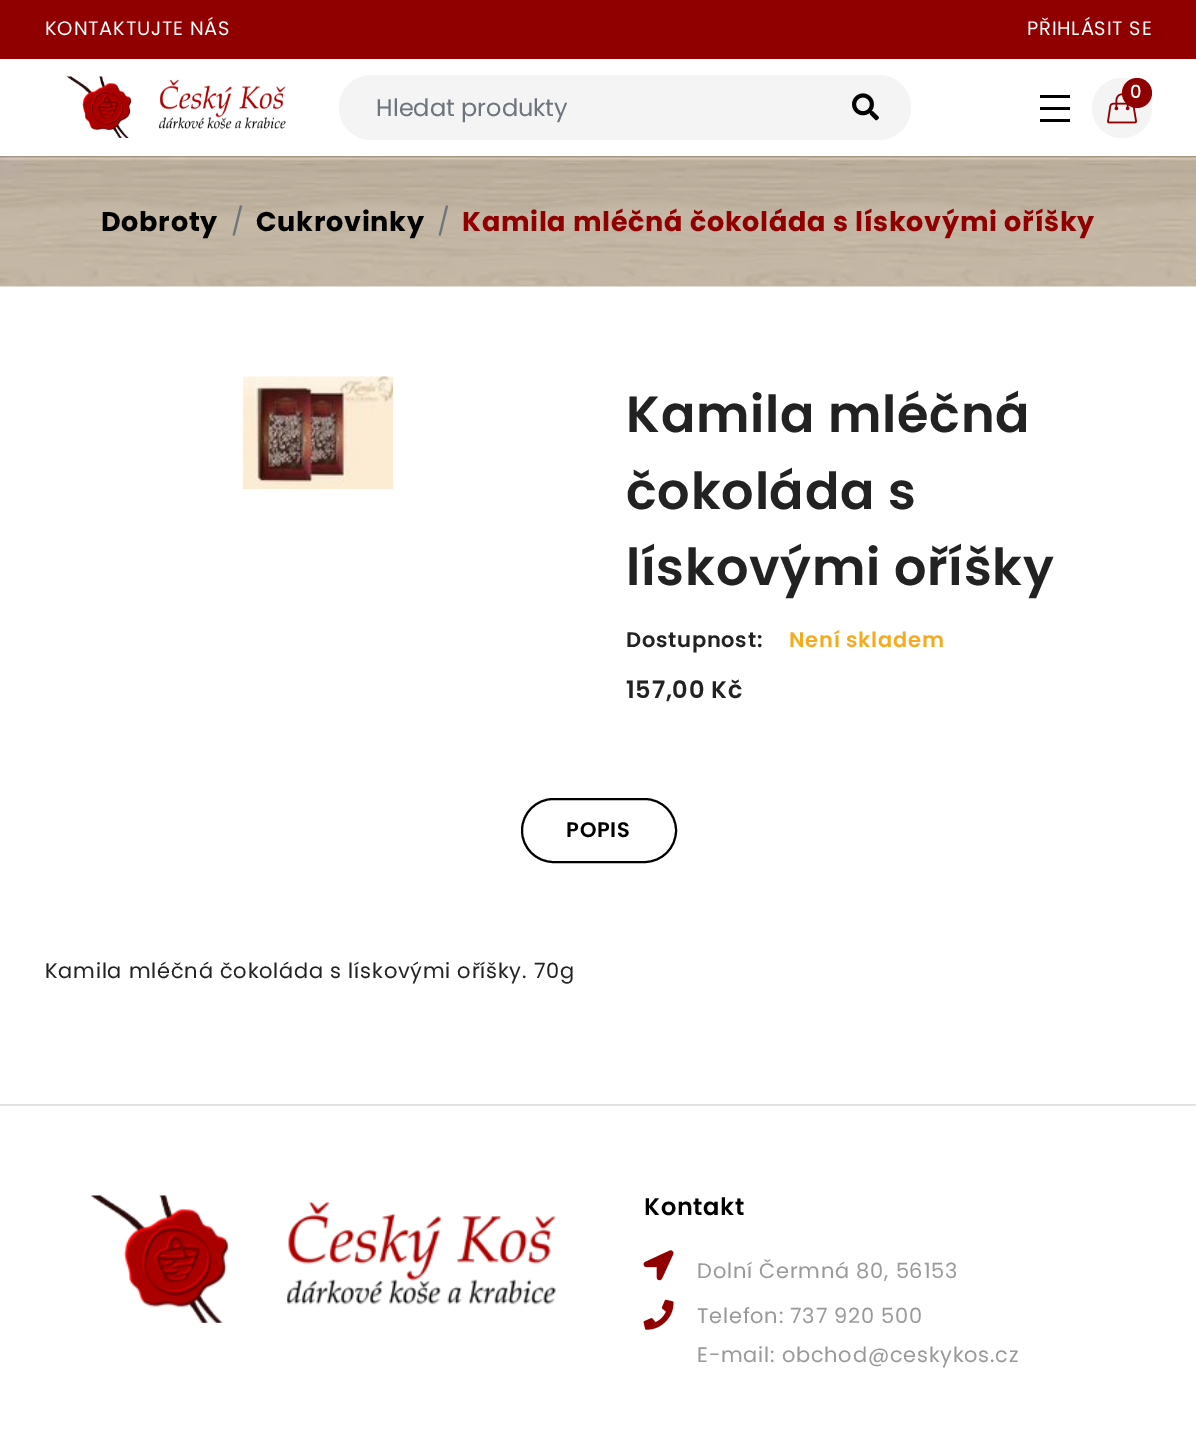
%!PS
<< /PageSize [1196 1448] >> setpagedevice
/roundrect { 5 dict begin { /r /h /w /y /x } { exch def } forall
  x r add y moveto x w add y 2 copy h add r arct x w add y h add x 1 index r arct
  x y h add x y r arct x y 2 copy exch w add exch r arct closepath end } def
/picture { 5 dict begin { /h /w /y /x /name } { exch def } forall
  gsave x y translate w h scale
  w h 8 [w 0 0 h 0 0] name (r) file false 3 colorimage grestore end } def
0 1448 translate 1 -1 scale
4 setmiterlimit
0.569 0 0 setrgbcolor
0 0 1196 1448 rectfill
/Poppins-Regular [19.5 0 0 -19.5 0 0] selectfont
1 setgray
45 35 moveto 0.75 0 (KONTAKTUJTE NÁS) ashow
1027 35 moveto 0.75 0 (PŘIHLÁSIT SE) ashow
0 59 1196 97 rectfill
(img1.rgb) 66 76 220 62 picture
0.957 setgray
newpath 1122 108 30 0 360 arc closepath fill
(img2.rgb) 1107 93 30 31 picture
0.569 0 0 setrgbcolor
newpath 1137 93 15 0 360 arc closepath fill
/Poppins-Medium [18 0 0 -18 0 0] selectfont
1 setgray
1130 98 moveto 0.75 0 (0) ashow
0 setgray
1040 107 30 3 rectfill
1040 95 30 3 rectfill
1040 119 30 3 rectfill
0.957 setgray
339 75 572 65 32.5 roundrect fill
/Poppins-Regular [24 0 0 -24 0 0] selectfont
0.424 0.459 0.49 setrgbcolor
376 116 moveto (Hledat produkty) show
(img3.rgb) 852 93 27 28 picture
1 setgray
0 286 1196 818 rectfill
(img4.rgb) 0 156 1196 131 picture
/Poppins-Bold [27 0 0 -27 0 0] selectfont
0 setgray
101 231 moveto 0.75 0 (Dobroty) ashow
/Poppins-Regular [27 0 0 -27 0 0] selectfont
0.424 0.459 0.49 setrgbcolor
231 231 moveto 0.75 0 (/) ashow
/Poppins-Bold [27 0 0 -27 0 0] selectfont
0 setgray
256 231 moveto 0.75 0 (Cukrovinky) ashow
/Poppins-Regular [27 0 0 -27 0 0] selectfont
0.424 0.459 0.49 setrgbcolor
437 231 moveto 0.75 0 (/) ashow
/Poppins-Bold [27 0 0 -27 0 0] selectfont
0.569 0 0 setrgbcolor
462 231 moveto 0.75 0 (Kamila mléčná čokoláda s lískovými oříšky) ashow
(img5.rgb) 242 376 151 113 picture
/Poppins-SemiBold [51 0 0 -51 0 0] selectfont
0.133 setgray
626 432 moveto 0.75 0 (Kamila mléčná) ashow
626 509 moveto 0.75 0 (čokoláda s) ashow
626 585 moveto 0.75 0 (lískovými oříšky) ashow
/Poppins-SemiBold [21 0 0 -21 0 0] selectfont
626 647 moveto 0.75 0 (Dostupnost:) ashow
0.961 0.671 0.118 setrgbcolor
789 647 moveto 0.75 0 (Není skladem) ashow
/Poppins-SemiBold [24 0 0 -24 0 0] selectfont
0.133 setgray
626 698 moveto 0.75 0 (157,00 Kč) ashow
0 setgray
2 setlinewidth
522 799 154 63 31.5 roundrect stroke
/Poppins-SemiBold [21 0 0 -21 0 0] selectfont
566 837 moveto 0.75 0 (POPIS) ashow
/Poppins-Regular [21 0 0 -21 0 0] selectfont
0.133 setgray
45 978 moveto 0.75 0 (Kamila mléčná čokoláda s lískovými oříšky. 70g) ashow
1 setgray
0 1106 1196 342 rectfill
0.886 setgray
0 1104 1196 2 rectfill
(img6.rgb) 90 1195 466 128 picture
/Poppins-SemiBold [24 0 0 -24 0 0] selectfont
0 setgray
644 1215 moveto 0.75 0 (Kontakt) ashow
(img7.rgb) 643 1250 31 31 picture
/Poppins-Regular [21 0 0 -21 0 0] selectfont
0.6 setgray
697 1278 moveto 0.75 0 (Dolní Čermná 80, 56153) ashow
(img8.rgb) 643 1299 31 31 picture
697 1323 moveto 0.75 0 (Telefon: 737 920 500) ashow
697 1362 moveto 0.75 0 (E-mail: obchod@ceskykos.cz) ashow
showpage
